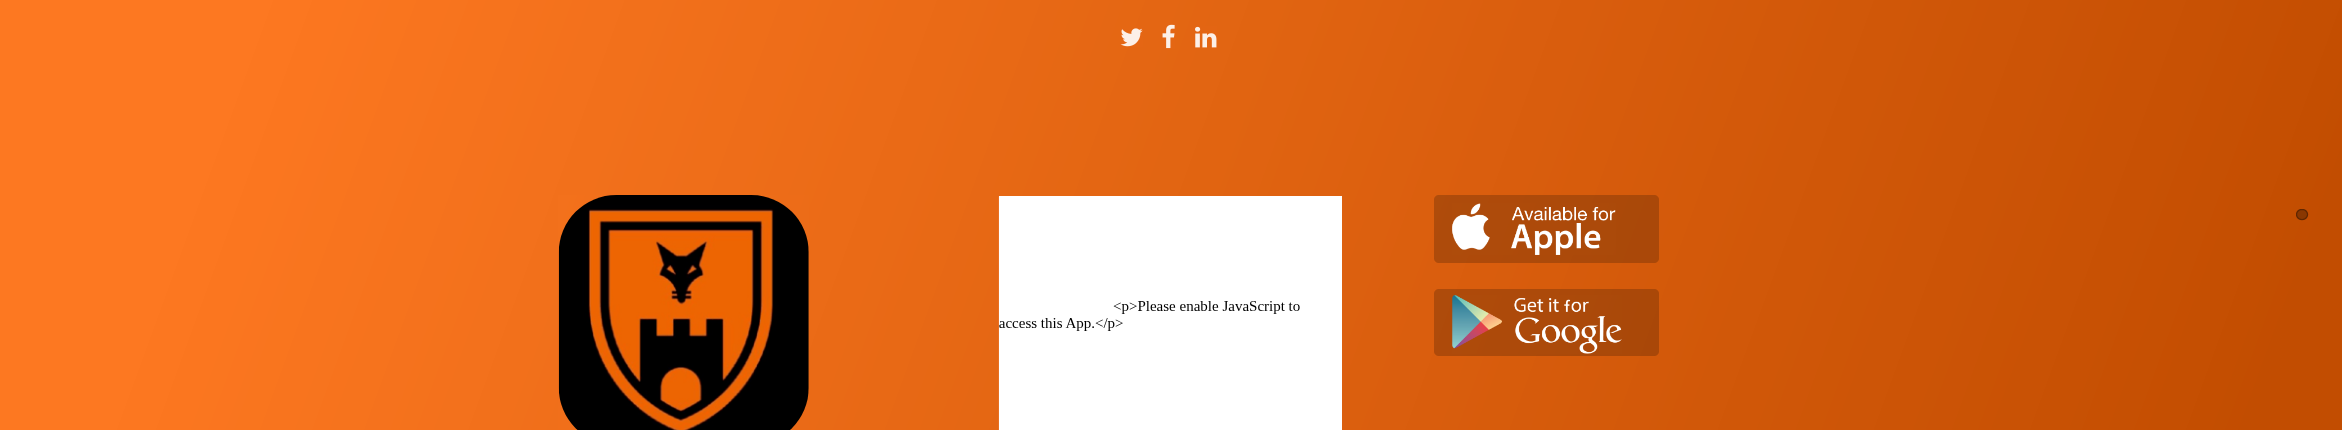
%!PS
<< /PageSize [2342 430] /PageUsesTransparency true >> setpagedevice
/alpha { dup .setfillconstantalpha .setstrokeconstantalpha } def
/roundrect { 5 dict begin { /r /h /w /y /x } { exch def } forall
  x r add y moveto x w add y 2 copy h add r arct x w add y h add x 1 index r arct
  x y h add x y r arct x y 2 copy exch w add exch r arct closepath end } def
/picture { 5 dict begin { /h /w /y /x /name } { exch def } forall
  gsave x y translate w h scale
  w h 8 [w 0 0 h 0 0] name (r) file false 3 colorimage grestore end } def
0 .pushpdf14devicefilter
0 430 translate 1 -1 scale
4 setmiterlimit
1 setgray
0 0 2342 430 rectfill
gsave newpath 0 0 moveto 2342 0 lineto 2342 430 lineto 0 430 lineto closepath clip newpath
<< /ShadingType 2 /ColorSpace /DeviceRGB /Coords [-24 65 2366 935] /Extend [true true] /Function << /FunctionType 3 /Domain [0 1] /Functions [<< /FunctionType 2 /Domain [0 1] /C0 [0.992 0.471 0.129] /C1 [0.992 0.471 0.129] /N 1 >> << /FunctionType 2 /Domain [0 1] /C0 [0.992 0.471 0.129] /C1 [0.761 0.302 0.004] /N 1 >> << /FunctionType 2 /Domain [0 1] /C0 [0.761 0.302 0.004] /C1 [0.761 0.302 0.004] /N 1 >>] /Bounds [0.1 0.9] /Encode [0 1 0 1 0 1] >> >> shfill grestore
(img1.rgb) 558 195 251 235 picture
(img2.rgb) 998 196 344 234 picture
0.2 alpha
0 setgray
1434 195 225 68 5 roundrect fill
1 alpha
(img3.rgb) 1452 203 164 52 picture
0.2 alpha
1434 289 225 67 5 roundrect fill
1 alpha
(img4.rgb) 1452 295 170 59 picture
(img5.rgb) 1120 28 23 19 picture
(img6.rgb) 1162 24 13 25 picture
(img7.rgb) 1195 26 22 22 picture
0.537 0.216 0.004 setrgbcolor
2296 209 12 11 5.5 roundrect fill
0.3 alpha
0 setgray
2296.5 209.5 11 10 5 roundrect stroke
.poppdf14devicefilter showpage
